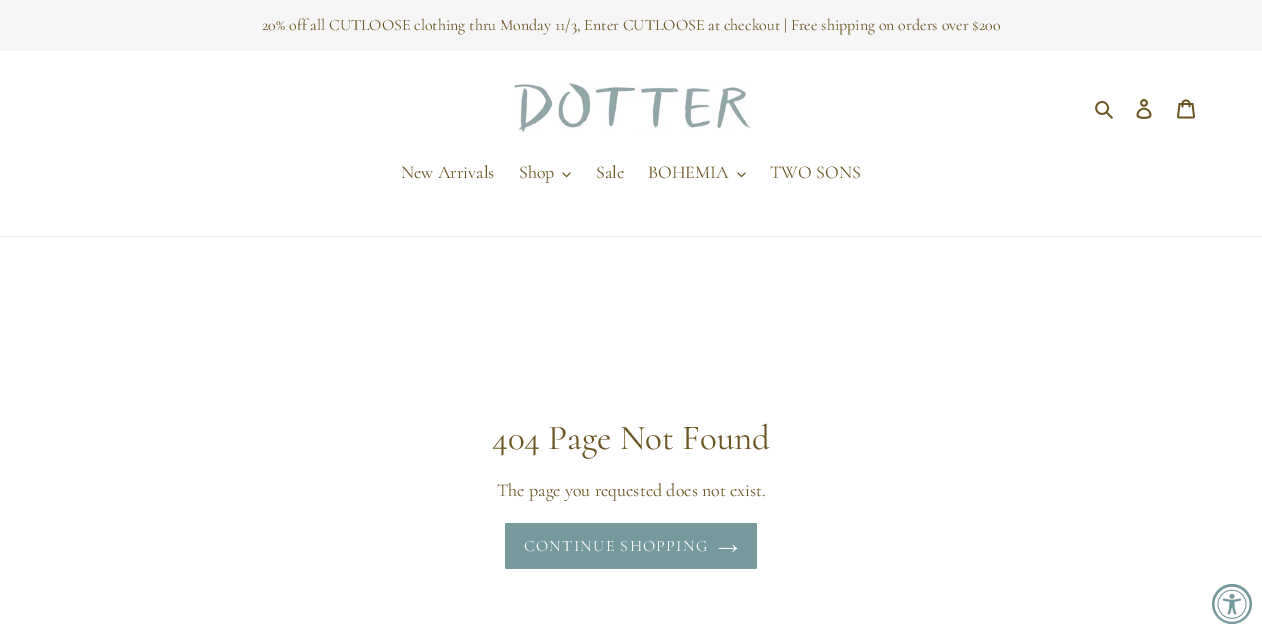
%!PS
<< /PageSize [1262 634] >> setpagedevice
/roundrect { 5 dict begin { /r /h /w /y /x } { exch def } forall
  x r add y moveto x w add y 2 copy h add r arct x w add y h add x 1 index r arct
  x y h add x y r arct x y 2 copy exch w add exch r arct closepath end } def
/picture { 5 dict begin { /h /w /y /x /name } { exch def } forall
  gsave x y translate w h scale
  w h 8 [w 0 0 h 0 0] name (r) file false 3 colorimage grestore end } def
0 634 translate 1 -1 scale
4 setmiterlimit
1 setgray
0 0 1262 634 rectfill
0.965 setgray
0 0 1262 51 rectfill
/Cormorant-Regular [16 0 0 -16 0 0] selectfont
0.416 0.329 0.129 setrgbcolor
262 30 moveto (20% off all CUTLOOSE clothing thru Monday 11/3, Enter CUTLOOSE at checkout | Free shipping on orders over $200) show
(img1.rgb) 514 81 237 52 picture
(img2.rgb) 1095 101 18 18 picture
(img3.rgb) 1136 99 16 20 picture
(img4.rgb) 1177 99 18 20 picture
0.922 setgray
0 236 1262 1 rectfill
/Cormorant-Regular [18 0 0 -18 0 0] selectfont
0.416 0.329 0.129 setrgbcolor
401 178 moveto (New Arrivals) show
519 178 moveto (Shop) show
(img5.rgb) 562 172 9 6 picture
596 178 moveto (Sale) show
648 178 moveto (BOHEMIA) show
(img5.rgb) 737 172 9 6 picture
770 178 moveto (TWO SONS) show
/Cormorant-Regular [35 0 0 -35 0 0] selectfont
492 449 moveto (404 Page Not Found) show
/Cormorant-Regular [18 0 0 -18 0 0] selectfont
497 496 moveto (The page you requested does not exist.) show
0.463 0.6 0.62 setrgbcolor
505 523 252 46 2 roundrect fill
/Cormorant-Regular [16 0 0 -16 0 0] selectfont
1 setgray
524 551 moveto 1.25 0 (CONTINUE SHOPPING) ashow
(img6.rgb) 718 544 20 8 picture
0.463 0.6 0.62 setrgbcolor
newpath 1232 604 20 0 360 arc closepath fill
(img7.rgb) 1214 586 36 36 picture
showpage
